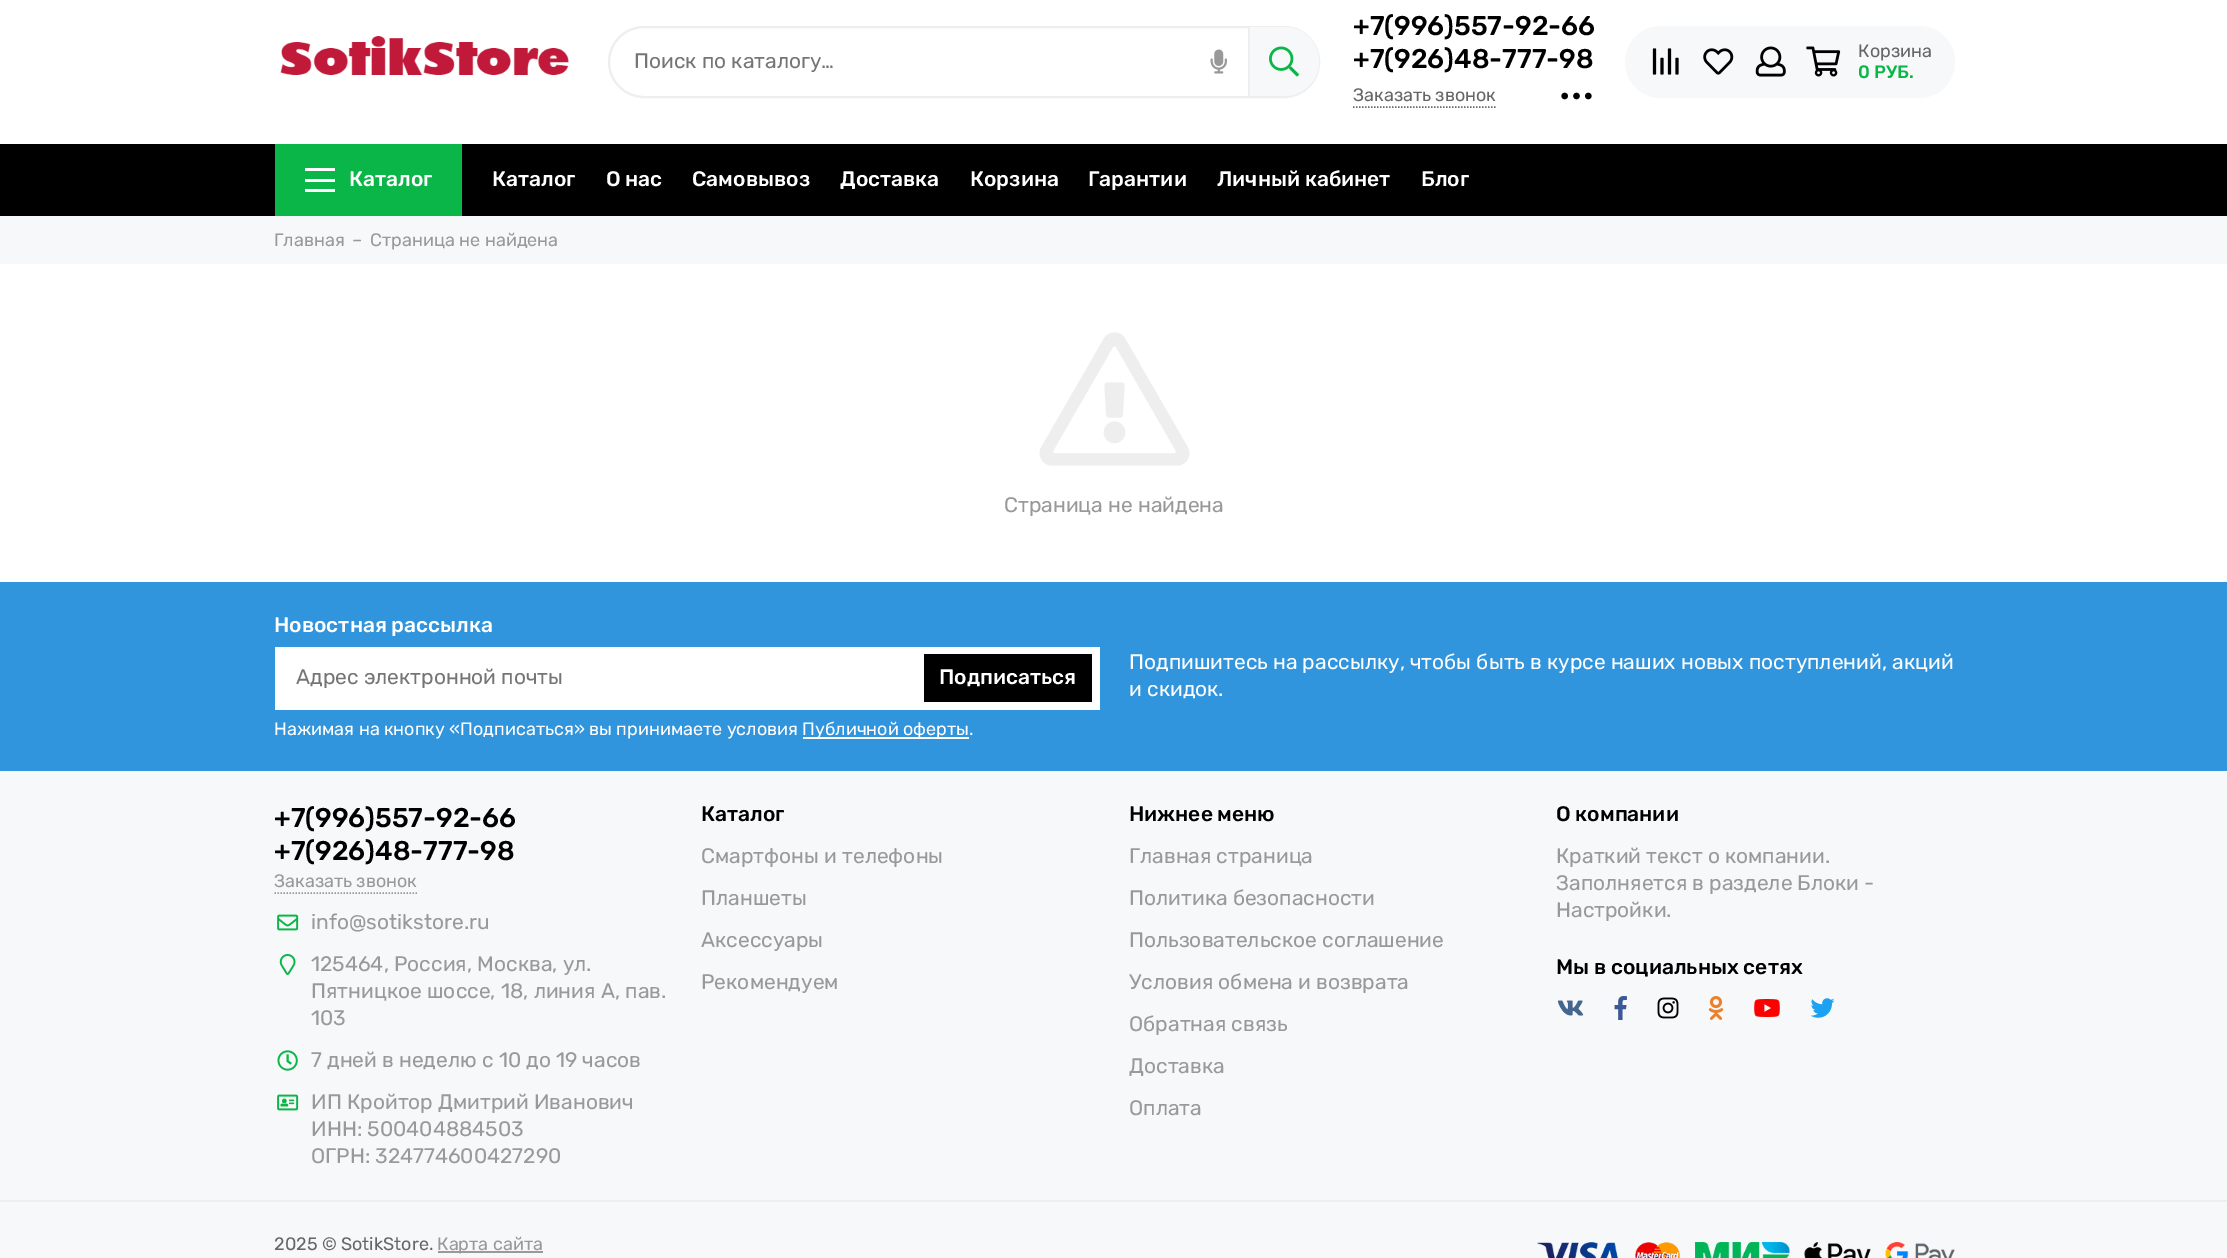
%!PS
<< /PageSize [2227 1258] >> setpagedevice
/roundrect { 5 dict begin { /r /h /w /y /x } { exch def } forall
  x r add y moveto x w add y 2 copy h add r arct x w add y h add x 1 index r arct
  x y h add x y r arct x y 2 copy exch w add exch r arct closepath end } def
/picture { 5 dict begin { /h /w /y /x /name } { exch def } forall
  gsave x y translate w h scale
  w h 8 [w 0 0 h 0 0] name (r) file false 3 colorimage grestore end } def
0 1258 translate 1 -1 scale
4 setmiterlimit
1 setgray
0 0 2227 1258 rectfill
(img1.rgb) 280 36 289 39 picture
0.933 setgray
2 setlinewidth
609 27 710 70 35 roundrect stroke
/Rubik-Regular [21 0 0 -21 0 0] selectfont
0.459 setgray
634 68 moveto (Поиск по каталогу…) show
(img2.rgb) 1210 49 17 25 picture
0.969 0.973 0.98 setrgbcolor
newpath 1248 27 moveto 1284.5 27 lineto 1303.5 27 1319 42.5 1319 61.5 curveto 1319 80.5 1303.5 96 1284.5 96 curveto 1248 96 lineto closepath fill
0.933 setgray
1248 27 2 69 rectfill
(img3.rgb) 1269 46 30 31 picture
/Rubik-Medium [27 0 0 -27 0 0] selectfont
0 setgray
1353 35 moveto (+7\(996\)557-92-66) show
1353 68 moveto (+7\(926\)48-777-98) show
0.4 setgray
1.5 setlinewidth
[1.5 1.5] 0 setdash
newpath 1353 107 moveto 1495.5 107 lineto stroke
/Rubik-Regular [18 0 0 -18 0 0] selectfont
1353 101 moveto (Заказать звонок) show
(img4.rgb) 1561 92 31 8 picture
0.969 0.973 0.98 setrgbcolor
1625 26 330 72 36 roundrect fill
(img5.rgb) 1652 48 27 27 picture
(img6.rgb) 1703 48 31 27 picture
(img7.rgb) 1755 46 31 31 picture
(img8.rgb) 1806 46 35 31 picture
0.4 setgray
1858 57 moveto (Корзина) show
/Rubik-Medium [18 0 0 -18 0 0] selectfont
0.043 0.714 0.282 setrgbcolor
1858 78 moveto (0 РУБ.) show
0 setgray
0 144 2227 72 rectfill
0.043 0.714 0.282 setrgbcolor
275 144 187 72 rectfill
1 setgray
305 168 30 3 rectfill
305 179 30 3 rectfill
305 189 30 3 rectfill
/Rubik-Medium [21 0 0 -21 0 0] selectfont
349 186 moveto (Каталог) show
492 186 moveto (Каталог) show
606 186 moveto (О нас) show
692 186 moveto (Самовывоз) show
840 186 moveto (Доставка) show
970 186 moveto (Корзина) show
1088 186 moveto (Гарантии) show
1217 186 moveto (Личный кабинет) show
1421 186 moveto (Блог) show
0.969 0.973 0.98 setrgbcolor
0 216 2227 48 rectfill
/Rubik-Regular [18 0 0 -18 0 0] selectfont
0.6 setgray
274 246 moveto (Главная) show
352 246 moveto (–) show
370 246 moveto (Страница не найдена) show
(img9.rgb) 1039 332 151 134 picture
/Rubik-Regular [21 0 0 -21 0 0] selectfont
1004 512 moveto (Страница не найдена) show
0.188 0.584 0.867 setrgbcolor
0 582 2227 189 rectfill
/Rubik-Medium [21 0 0 -21 0 0] selectfont
1 setgray
274 632 moveto (Новостная рассылка) show
275 647 825 63 rectfill
/Rubik-Regular [21 0 0 -21 0 0] selectfont
0.459 setgray
296 684 moveto (Адрес электронной почты) show
0 setgray
924 654 168 48 rectfill
/Rubik-Medium [21 0 0 -21 0 0] selectfont
1 setgray
939 684 moveto (Подписаться) show
/Rubik-Regular [18 0 0 -18 0 0] selectfont
274 735 moveto (Нажимая на кнопку «Подписаться» вы принимаете условия) show
803 737 166 2 rectfill
802 735 moveto (Публичной оферты.) show
/Rubik-Regular [21 0 0 -21 0 0] selectfont
1129 669 moveto (Подпишитесь на рассылку, чтобы быть в курсе наших новых поступлений, акций) show
1129 696 moveto (и скидок.) show
0.969 0.973 0.98 setrgbcolor
0 771 2227 429 rectfill
/Rubik-Medium [27 0 0 -27 0 0] selectfont
0 setgray
274 827 moveto (+7\(996\)557-92-66) show
274 860 moveto (+7\(926\)48-777-98) show
0.6 setgray
newpath 274.5 893 moveto 417 893 lineto stroke
/Rubik-Regular [18 0 0 -18 0 0] selectfont
274 887 moveto (Заказать звонок) show
(img10.rgb) 277 914 22 17 picture
/Rubik-Regular [21 0 0 -21 0 0] selectfont
311 929 moveto (info@sotikstore.ru) show
(img11.rgb) 279 954 17 21 picture
311 971 moveto (125464, Россия, Москва, ул.) show
311 998 moveto (Пятницкое шоссе, 18, линия А, пав.) show
311 1025 moveto (103) show
(img12.rgb) 277 1050 21 21 picture
311 1067 moveto (7 дней в неделю с 10 до 19 часов) show
(img13.rgb) 277 1094 22 17 picture
311 1109 moveto (ИП Кройтор Дмитрий Иванович) show
311 1136 moveto (ИНН: 500404884503) show
311 1163 moveto (ОГРН: 324774600427290) show
/Rubik-Medium [21 0 0 -21 0 0] selectfont
0 setgray
701 821 moveto (Каталог) show
/Rubik-Regular [21 0 0 -21 0 0] selectfont
0.6 setgray
701 863 moveto (Смартфоны и телефоны) show
701 905 moveto (Планшеты) show
701 947 moveto (Аксессуары) show
701 989 moveto (Рекомендуем) show
/Rubik-Medium [21 0 0 -21 0 0] selectfont
0 setgray
1129 821 moveto (Нижнее меню) show
/Rubik-Regular [21 0 0 -21 0 0] selectfont
0.6 setgray
1129 863 moveto (Главная страница) show
1129 905 moveto (Политика безопасности) show
1129 947 moveto (Пользовательское соглашение) show
1129 989 moveto (Условия обмена и возврата) show
1129 1031 moveto (Обратная связь) show
1129 1073 moveto (Доставка) show
1129 1115 moveto (Оплата) show
/Rubik-Medium [21 0 0 -21 0 0] selectfont
0 setgray
1556 821 moveto (О компании) show
/Rubik-Regular [21 0 0 -21 0 0] selectfont
0.6 setgray
1556 863 moveto (Краткий текст о компании.) show
1556 890 moveto (Заполняется в разделе Блоки -) show
1556 917 moveto (Настройки.) show
/Rubik-Medium [21 0 0 -21 0 0] selectfont
0 setgray
1556 974 moveto (Мы в социальных сетях) show
(img14.rgb) 1557 1000 27 16 picture
(img15.rgb) 1614 996 13 24 picture
(img16.rgb) 1657 997 22 22 picture
(img17.rgb) 1708 996 16 24 picture
(img18.rgb) 1754 999 26 18 picture
(img19.rgb) 1810 998 25 20 picture
0.969 0.973 0.98 setrgbcolor
0 1202 2227 56 rectfill
0.933 setgray
0 1200 2227 2 rectfill
/Rubik-Regular [18 0 0 -18 0 0] selectfont
0.4 setgray
274 1250 moveto (2025 © SotikStore.) show
0.6 setgray
438 1251 105 2 rectfill
437 1250 moveto (Карта сайта) show
(img20.rgb) 1537 1242 81 16 picture
(img21.rgb) 1635 1242 45 16 picture
(img22.rgb) 1695 1242 95 16 picture
(img23.rgb) 1804 1242 67 16 picture
(img24.rgb) 1885 1242 70 16 picture
showpage
